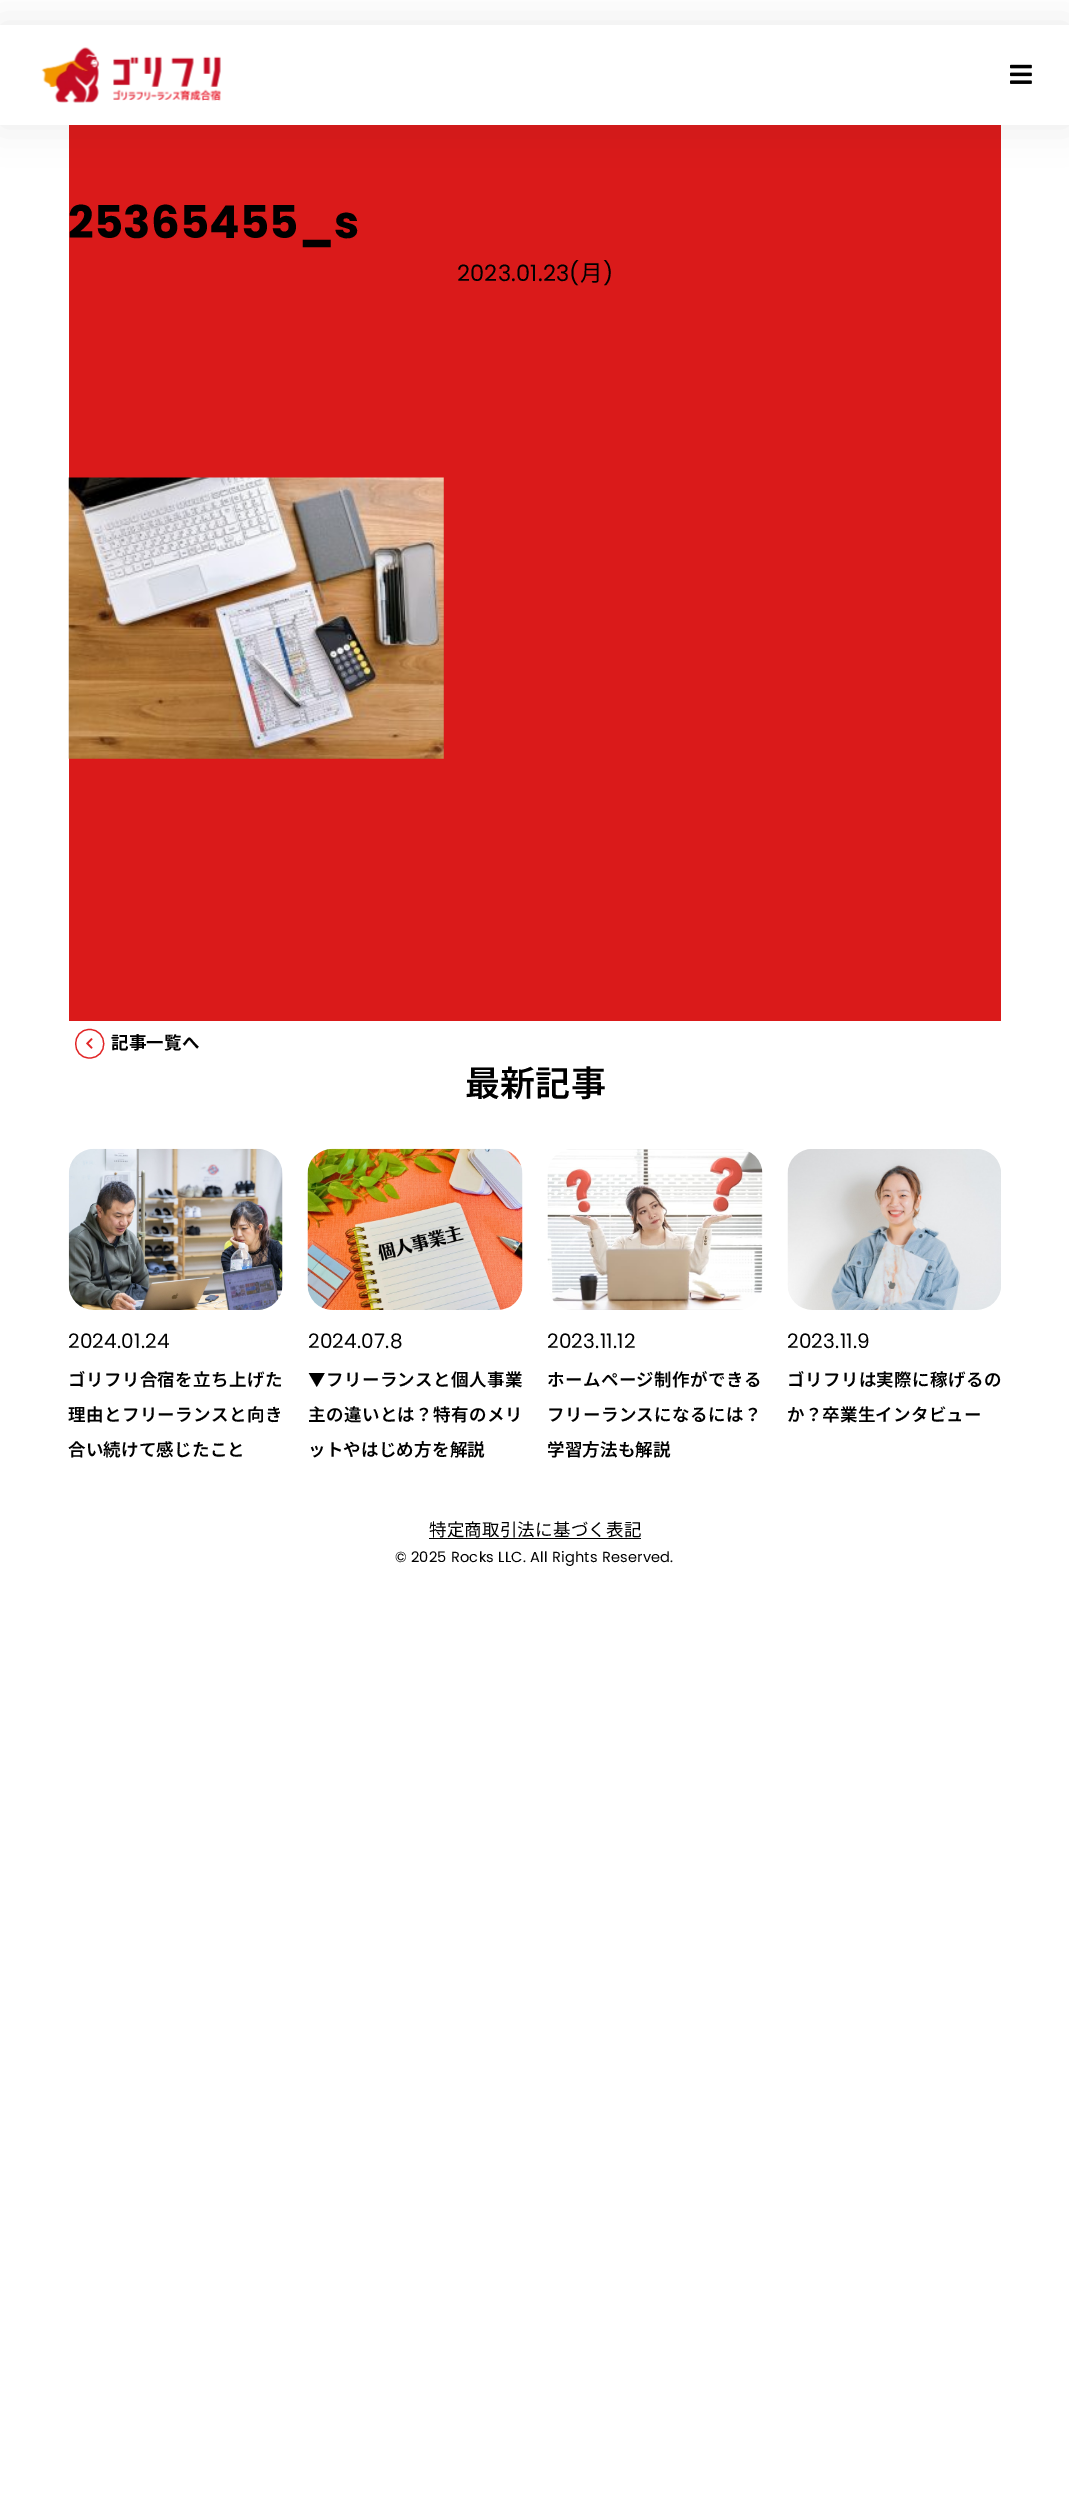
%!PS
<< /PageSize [1069 2498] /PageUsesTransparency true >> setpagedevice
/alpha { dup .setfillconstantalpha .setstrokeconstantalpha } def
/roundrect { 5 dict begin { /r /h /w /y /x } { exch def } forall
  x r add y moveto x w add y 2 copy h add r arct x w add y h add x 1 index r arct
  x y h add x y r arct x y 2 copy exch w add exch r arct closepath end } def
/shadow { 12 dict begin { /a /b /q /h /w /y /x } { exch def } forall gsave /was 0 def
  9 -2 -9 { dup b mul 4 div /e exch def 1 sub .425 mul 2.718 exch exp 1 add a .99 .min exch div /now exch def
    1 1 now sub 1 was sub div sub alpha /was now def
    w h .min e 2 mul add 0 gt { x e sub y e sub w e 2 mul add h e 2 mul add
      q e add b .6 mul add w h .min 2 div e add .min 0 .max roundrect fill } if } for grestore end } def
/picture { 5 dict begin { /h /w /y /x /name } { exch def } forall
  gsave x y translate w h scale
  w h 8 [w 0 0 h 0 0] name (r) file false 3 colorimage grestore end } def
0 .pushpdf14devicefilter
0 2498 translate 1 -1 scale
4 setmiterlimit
1 setgray
0 0 1069 2498 rectfill
0.855 0.102 0.102 setrgbcolor
69 125 932 896 rectfill
0 setgray
0 25 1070 100 0 19 0.08 shadow
1 setgray
0 25 1069 100 rectfill
(img1.rgb) 41 47 180 56 picture
(img2.rgb) 1010 64 22 20 picture
/Poppins-Bold [45 0 0 -45 0 0] selectfont
0 setgray
68 238 moveto 0.2 0 (25365455_s) ashow
/Poppins-Regular [22.5 0 0 -22.5 0 0] selectfont
457 281 moveto 0.2 0 (2023.01.23\() ashow
/NotoSansJP-Regular [22.5 0 0 -22.5 0 0] selectfont
580 281 moveto 0.2 0 (月) ashow
/Poppins-Regular [22.5 0 0 -22.5 0 0] selectfont
603 281 moveto 0.2 0 (\)) ashow
(img3.rgb) 68 477 376 282 picture
0.882 0.145 0.149 setrgbcolor
1.2 setlinewidth
newpath 89.5 1058 moveto 71 1058 71 1029.5 89.5 1029.5 curveto 108.5 1029.5 108.5 1058 89.5 1058 curveto closepath stroke
(img4.rgb) 86 1038 7 11 picture
/NotoSansJP-Bold [17.5 0 0 -17.5 0 0] selectfont
0 setgray
111 1049 moveto 0.2 0 (記事一覧へ) ashow
/NotoSansJP-SemiBold [35 0 0 -35 0 0] selectfont
465 1096 moveto 0.2 0 (最新記事) ashow
(img5.rgb) 68 1148 215 162 picture
/Poppins-Regular [20 0 0 -20 0 0] selectfont
68 1348 moveto 0.2 0 (2024.01.24) ashow
/NotoSansJP-SemiBold [17.5 0 0 -17.5 0 0] selectfont
68 1386 moveto 0.4 0 (ゴリフリ合宿を立ち上げた) ashow
68 1421 moveto 0.4 0 (理由とフリーランスと向き) ashow
68 1456 moveto 0.2 0 (合い続けて感じたこと) ashow
(img6.rgb) 307 1148 216 162 picture
/Poppins-Regular [20 0 0 -20 0 0] selectfont
308 1348 moveto 0.2 0 (2024.07.8) ashow
/NotoSansJP-SemiBold [17.5 0 0 -17.5 0 0] selectfont
308 1386 moveto 0.4 0 (▼フリーランスと個人事業) ashow
308 1421 moveto 0.4 0 (主の違いとは？特有のメリ) ashow
308 1456 moveto 0.2 0 (ットやはじめ方を解説) ashow
(img7.rgb) 547 1149 216 161 picture
/Poppins-Regular [20 0 0 -20 0 0] selectfont
547 1348 moveto 0.2 0 (2023.11.12) ashow
/NotoSansJP-SemiBold [17.5 0 0 -17.5 0 0] selectfont
547 1386 moveto 0.4 0 (ホームページ制作ができる) ashow
547 1421 moveto 0.4 0 (フリーランスになるには？) ashow
547 1456 moveto 0.2 0 (学習方法も解説) ashow
(img8.rgb) 787 1149 214 161 picture
/Poppins-Regular [20 0 0 -20 0 0] selectfont
787 1348 moveto 0.2 0 (2023.11.9) ashow
/NotoSansJP-SemiBold [17.5 0 0 -17.5 0 0] selectfont
787 1386 moveto 0.4 0 (ゴリフリは実際に稼げるの) ashow
787 1421 moveto 0.2 0 (か？卒業生インタビュー) ashow
/NotoSansJP-Regular [17.5 0 0 -17.5 0 0] selectfont
429 1536 moveto 0.2 0 (特定商取引法に基づく表記) ashow
429 1538 212 1 rectfill
/Poppins-Regular [14.6 0 0 -14.6 0 0] selectfont
395 1562 moveto 0.2 0 (© 2025 Rocks LLC. All Rights Reserved.) ashow
.poppdf14devicefilter showpage
